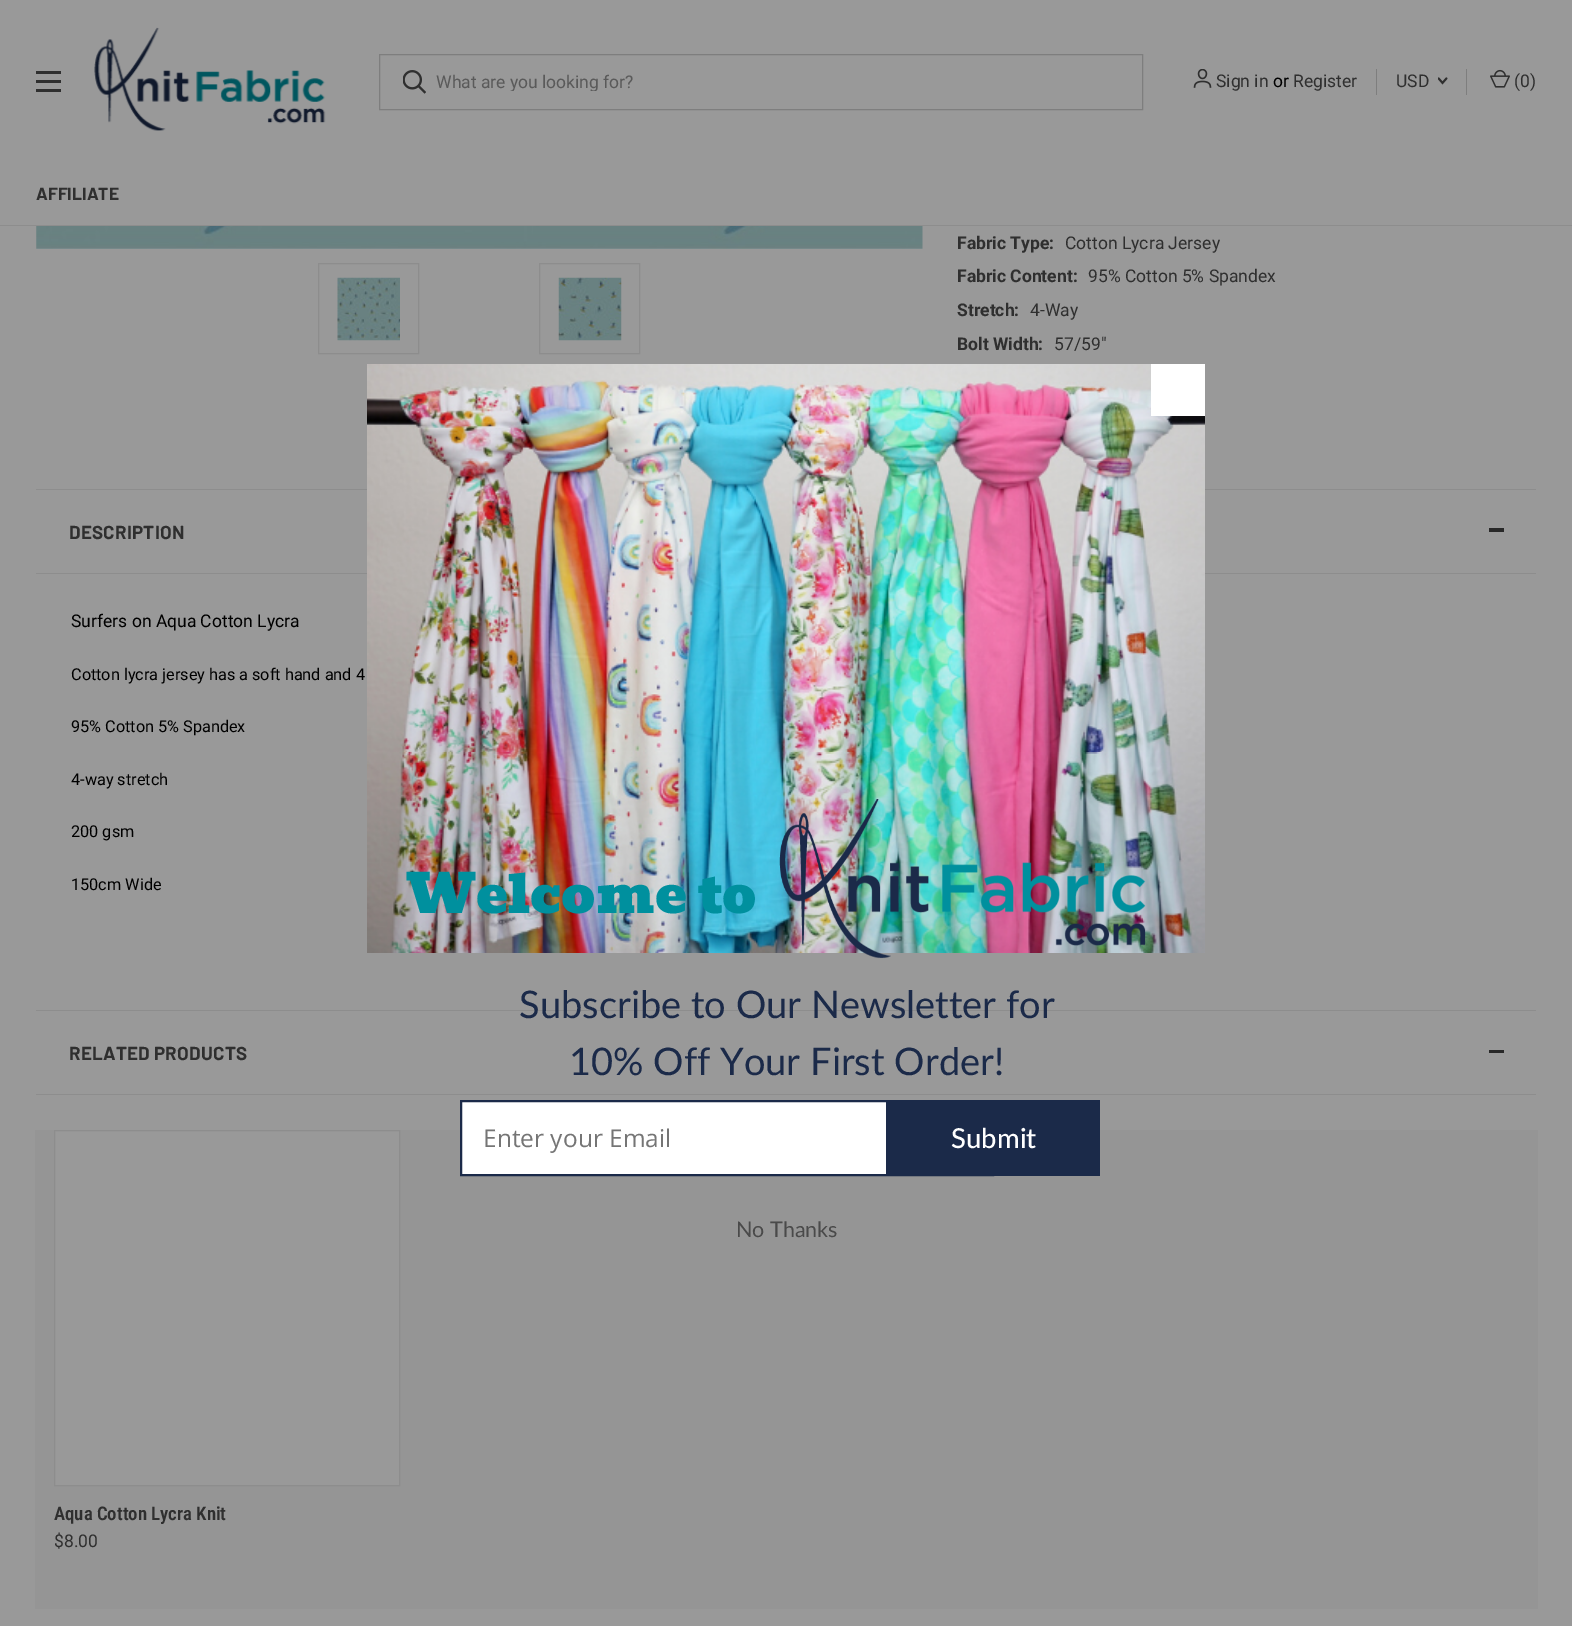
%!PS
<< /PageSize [1572 1626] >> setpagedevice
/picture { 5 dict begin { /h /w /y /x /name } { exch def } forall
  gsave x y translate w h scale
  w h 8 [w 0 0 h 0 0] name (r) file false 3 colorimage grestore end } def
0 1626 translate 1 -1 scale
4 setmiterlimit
0.6 setgray
0 0 1572 1626 rectfill
0.184 setgray
36 80 25 3 rectfill
36 71 25 3 rectfill
36 89 25 3 rectfill
(img1.rgb) 94 27 232 104 picture
0.494 setgray
379.5 54.5 763 55 rectstroke
(img2.rgb) 403 70 23 24 picture
gsave
436 71 688 20 rectclip
/Roboto-Regular [17.5 0 0 -17.5 0 0] selectfont
0.353 setgray
436 88 moveto (What are you looking for?) show
grestore
(img3.rgb) 1193 69 19 19 picture
/Roboto-Regular [17.5 0 0 -17.5 0 0] selectfont
0.184 setgray
1216 87 moveto (Sign in) show
0 setgray
1273 87 moveto (or) show
0.184 setgray
1293 87 moveto (Register) show
0.494 setgray
1376 69 1 26 rectfill
0.184 setgray
1396 87 moveto (USD) show
(img4.rgb) 1438 77 10 8 picture
0.494 setgray
1466 69 1 26 rectfill
(img5.rgb) 1490 69 20 19 picture
0.184 setgray
1514 87 moveto (\(0\)) show
0.553 setgray
0 225 1572 1 rectfill
/Barlow-Bold [17.5 0 0 -17.5 0 0] selectfont
0.184 setgray
36 200 moveto (AFFILIATE) show
(img6.rgb) 36 226 887 23 picture
0.553 setgray
318.5 263.5 100 90 rectstroke
(img7.rgb) 337 277 63 64 picture
539.5 263.5 100 90 rectstroke
(img8.rgb) 558 277 64 64 picture
/Roboto-Bold [17.5 0 0 -17.5 0 0] selectfont
0.184 setgray
957 249 moveto (Fabric Type:) show
/Roboto-Regular [17.5 0 0 -17.5 0 0] selectfont
1065 249 moveto (Cotton Lycra Jersey) show
/Roboto-Bold [17.5 0 0 -17.5 0 0] selectfont
957 282 moveto (Fabric Content:) show
/Roboto-Regular [17.5 0 0 -17.5 0 0] selectfont
1088 282 moveto (95% Cotton 5% Spandex) show
/Roboto-Bold [17.5 0 0 -17.5 0 0] selectfont
957 316 moveto (Stretch:) show
/Roboto-Regular [17.5 0 0 -17.5 0 0] selectfont
1030 316 moveto (4-Way) show
/Roboto-Bold [17.5 0 0 -17.5 0 0] selectfont
957 350 moveto (Bolt Width:) show
/Roboto-Regular [17.5 0 0 -17.5 0 0] selectfont
1054 350 moveto (57/59") show
0.553 setgray
36 489 1500 1 rectfill
36 573 1500 1 rectfill
/Barlow-Bold [18.75 0 0 -18.75 0 0] selectfont
0.184 setgray
69 539 moveto 0.25 0 (DESCRIPTION) ashow
0.157 setgray
1489 528 15 4 rectfill
/Roboto-Regular [17.5 0 0 -17.5 0 0] selectfont
0 setgray
71 627 moveto (Surfers on Aqua Cotton Lycra) show
/Roboto-Regular [16.25 0 0 -16.25 0 0] selectfont
71 680 moveto (Cotton lycra jersey has a soft hand and 4) show
71 732 moveto (95% Cotton 5% Spandex) show
71 785 moveto (4-way stretch) show
71 837 moveto (200 gsm) show
71 890 moveto (150cm Wide) show
0.553 setgray
36 1010 1500 1 rectfill
36 1094 1500 1 rectfill
/Barlow-Bold [18.75 0 0 -18.75 0 0] selectfont
0.184 setgray
69 1060 moveto 0.25 0 (RELATED PRODUCTS) ashow
0.157 setgray
1489 1050 15 3 rectfill
0.584 setgray
35 1130 1503 479 rectfill
0.6 setgray
newpath 54.5 1130.5 moveto 399.5 1130.5 lineto 399.5 1485.5 lineto 54.5 1485.5 lineto closepath gsave fill grestore
0.553 setgray
stroke
/RobotoCondensed-SemiBold [18.75 0 0 -18.75 0 0] selectfont
0.184 setgray
54 1520 moveto (Aqua Cotton Lycra Knit) show
/Roboto-Regular [17.5 0 0 -17.5 0 0] selectfont
54 1547 moveto ($8.00) show
(img9.rgb) 367 364 838 589 picture
1 setgray
1151 364 54 52 rectfill
/Bevan-Regular [53.25 0 0 -53.25 0 0] selectfont
0 0.565 0.62 setrgbcolor
406 913 moveto (Welcome to) show
(img10.rgb) 779 799 367 160 picture
/Lato-Regular [38 0 0 -38 0 0] selectfont
0.106 0.165 0.286 setrgbcolor
519 1018 moveto (Subscribe to Our Newsletter for) show
569 1075 moveto (10% Off Your First Order!) show
1 setgray
462 1102 424 72 rectfill
0.106 0.165 0.286 setrgbcolor
2 setlinewidth
461 1101 532 74 rectstroke
/OpenSans-Regular [24.5 0 0 -24.5 0 0] selectfont
0.459 setgray
483 1147 moveto (Enter your Email) show
0.106 0.165 0.286 setrgbcolor
886 1100 214 76 rectfill
/Lato-Medium [27.5 0 0 -27.5 0 0] selectfont
1 setgray
951 1148 moveto (Submit) show
/Lato-Regular [21.5 0 0 -21.5 0 0] selectfont
0.29 setgray
736 1237 moveto (No Thanks) show
showpage
